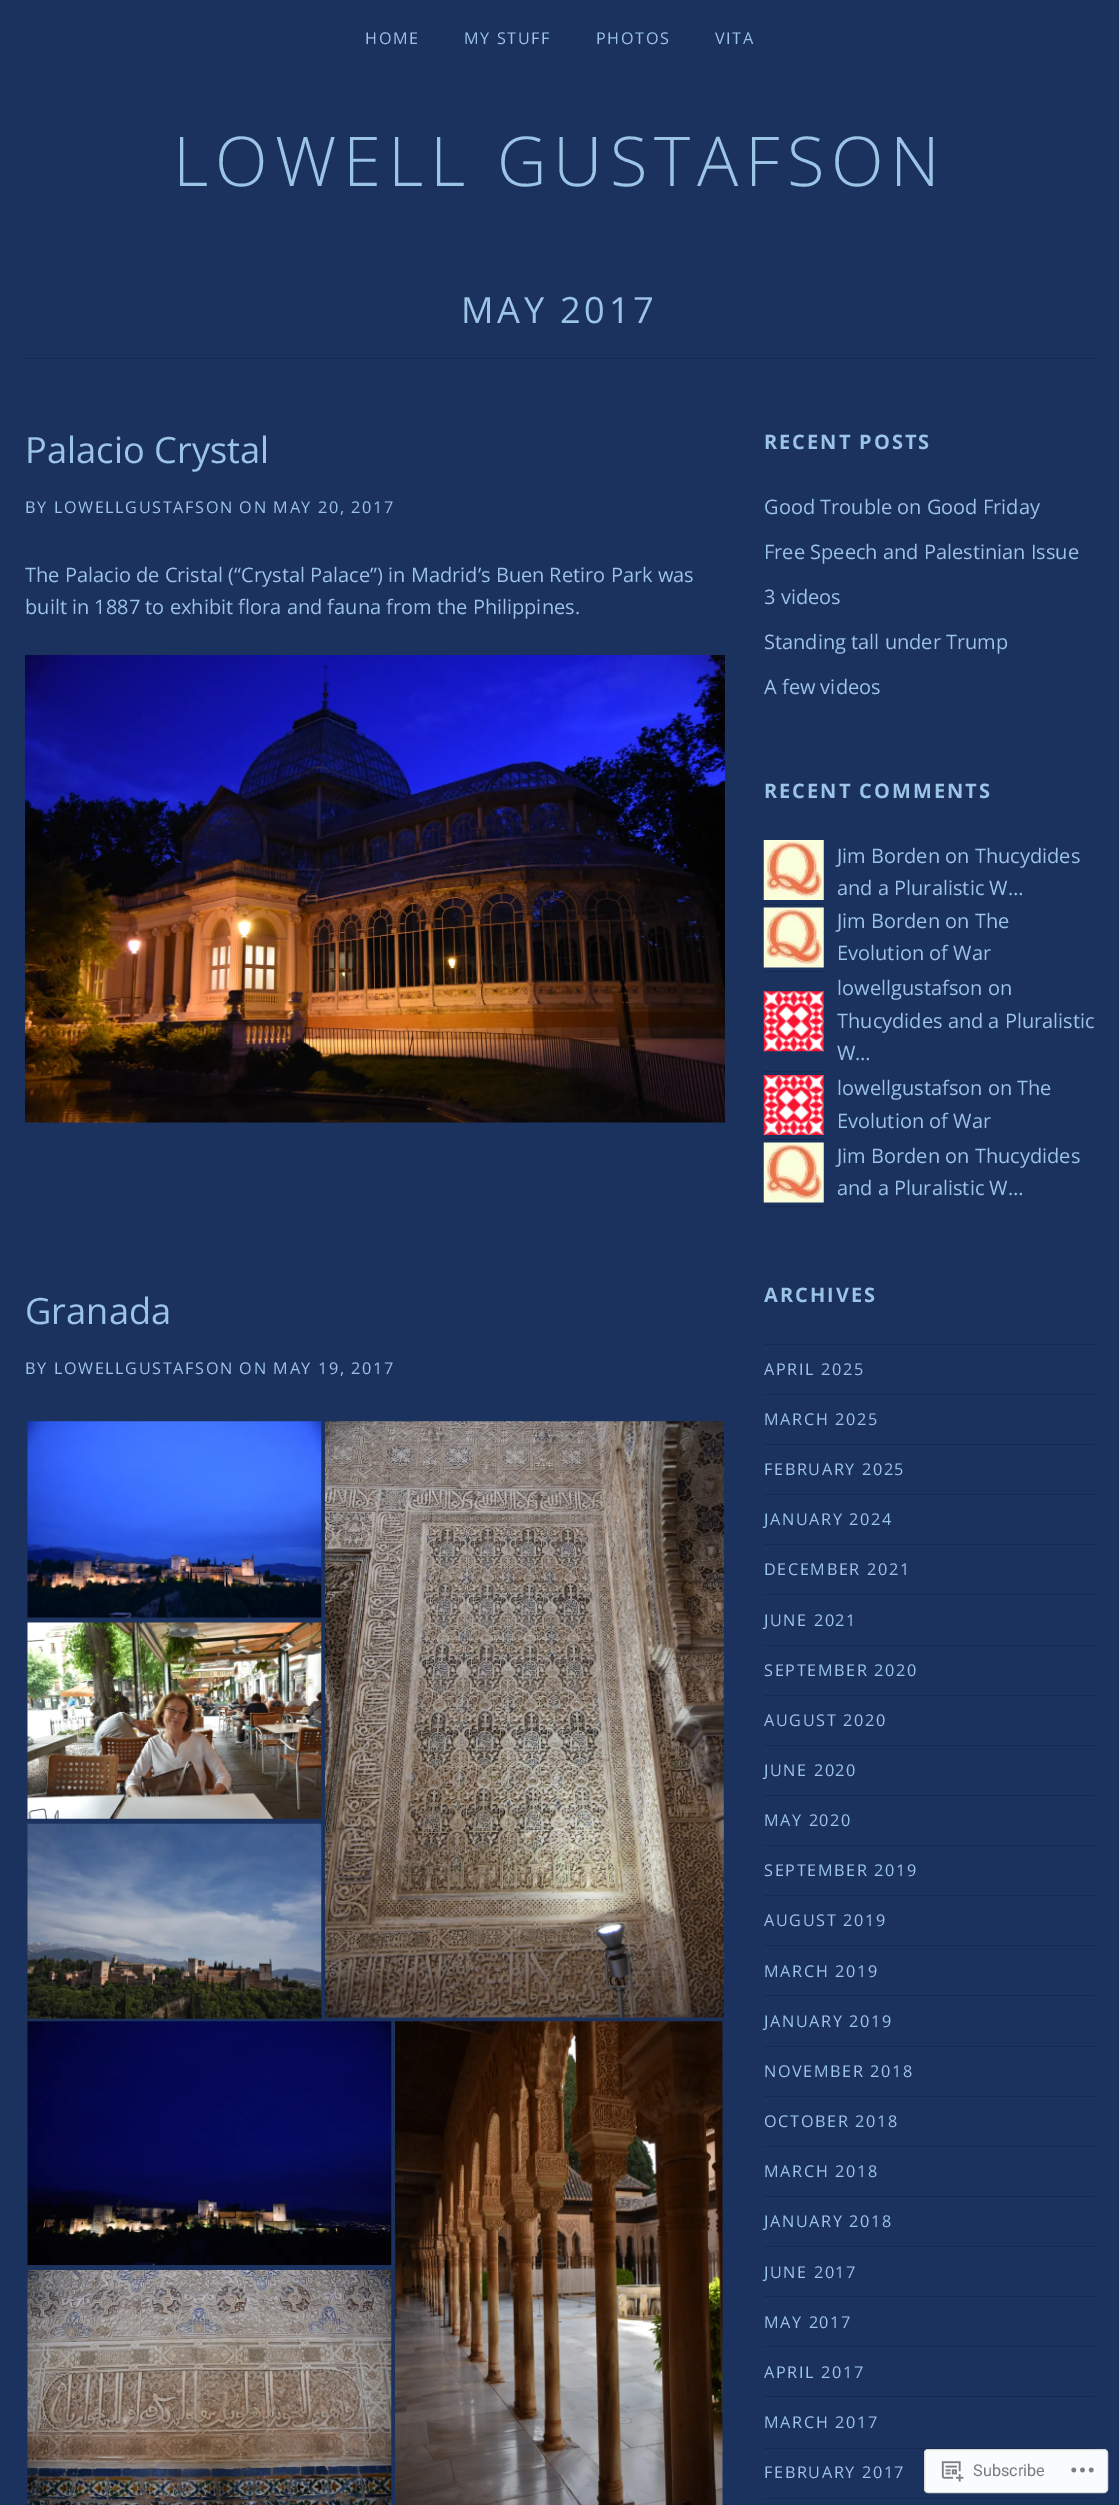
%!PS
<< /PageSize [1119 2505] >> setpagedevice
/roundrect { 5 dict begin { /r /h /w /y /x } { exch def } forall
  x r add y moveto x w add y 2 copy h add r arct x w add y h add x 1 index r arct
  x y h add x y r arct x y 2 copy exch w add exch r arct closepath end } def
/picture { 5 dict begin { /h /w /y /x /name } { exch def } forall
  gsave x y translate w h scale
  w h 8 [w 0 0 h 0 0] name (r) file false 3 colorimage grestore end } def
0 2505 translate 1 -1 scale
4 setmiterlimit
0.106 0.196 0.373 setrgbcolor
0 0 1119 2505 rectfill
/OpenSans-Regular [16.25 0 0 -16.25 0 0] selectfont
0.612 0.769 0.894 setrgbcolor
365 44 moveto 1.6 0 (HOME) ashow
464 44 moveto 1.6 0 (MY STUFF) ashow
596 44 moveto 1.6 0 (PHOTOS) ashow
715 44 moveto 1.6 0 (VITA) ashow
/OpenSans-Light [68.75 0 0 -68.75 0 0] selectfont
173 186 moveto 6.9 0 (LOWELL GUSTAFSON) ashow
0.086 0.161 0.31 setrgbcolor
25 358 1070 1 rectfill
/OpenSans-Regular [36.25 0 0 -36.25 0 0] selectfont
0.612 0.769 0.894 setrgbcolor
461 323 moveto 3.5 0 (MAY 2017) ashow
25 463 moveto (Palacio Crystal) show
/OpenSans-Regular [16.25 0 0 -16.25 0 0] selectfont
25 513 moveto 1.6 0 (BY LOWELLGUSTAFSON ON MAY 20, 2017) ashow
/OpenSans-Regular [20 0 0 -20 0 0] selectfont
25 582 moveto (The Palacio de Cristal \(“Crystal Palace”\) in Madrid’s Buen Retiro Park was) show
25 614 moveto (built in 1887 to exhibit flora and fauna from the Philippines.) show
(img1.rgb) 25 655 700 468 picture
/OpenSans-Regular [36.25 0 0 -36.25 0 0] selectfont
25 1324 moveto (Granada) show
/OpenSans-Regular [16.25 0 0 -16.25 0 0] selectfont
25 1374 moveto 1.6 0 (BY LOWELLGUSTAFSON ON MAY 19, 2017) ashow
(img2.rgb) 27 1421 295 197 picture
(img3.rgb) 27 1622 295 197 picture
(img4.rgb) 27 1823 295 196 picture
(img5.rgb) 325 1421 399 597 picture
(img6.rgb) 27 2021 365 244 picture
(img7.rgb) 27 2270 365 235 picture
(img8.rgb) 395 2021 328 484 picture
/OpenSans-Bold [20 0 0 -20 0 0] selectfont
764 449 moveto 2 0 (RECENT POSTS) ashow
/OpenSans-Regular [20 0 0 -20 0 0] selectfont
764 514 moveto (Good Trouble on Good Friday) show
764 559 moveto (Free Speech and Palestinian Issue) show
764 604 moveto (3 videos) show
764 649 moveto (Standing tall under Trump) show
764 694 moveto (A few videos) show
/OpenSans-Bold [20 0 0 -20 0 0] selectfont
764 798 moveto 2 0 (RECENT COMMENTS) ashow
0.086 0.161 0.31 setrgbcolor
764 904 61 1 rectfill
(img9.rgb) 763 840 61 60 picture
/OpenSans-Regular [20 0 0 -20 0 0] selectfont
0.612 0.769 0.894 setrgbcolor
837 863 moveto (Jim Borden on Thucydides) show
837 895 moveto (and a Pluralistic W…) show
0.086 0.161 0.31 setrgbcolor
764 971 61 1 rectfill
(img10.rgb) 763 907 61 61 picture
0.612 0.769 0.894 setrgbcolor
837 928 moveto (Jim Borden on The) show
837 960 moveto (Evolution of War) show
0.086 0.161 0.31 setrgbcolor
764 1071 61 1 rectfill
(img11.rgb) 763 991 61 61 picture
0.612 0.769 0.894 setrgbcolor
837 995 moveto (lowellgustafson on) show
837 1028 moveto (Thucydides and a Pluralistic) show
837 1060 moveto (W…) show
0.086 0.161 0.31 setrgbcolor
764 1139 61 1 rectfill
(img12.rgb) 763 1075 61 60 picture
0.612 0.769 0.894 setrgbcolor
837 1095 moveto (lowellgustafson on The) show
837 1128 moveto (Evolution of War) show
0.086 0.161 0.31 setrgbcolor
764 1206 61 1 rectfill
(img13.rgb) 763 1142 61 61 picture
0.612 0.769 0.894 setrgbcolor
837 1163 moveto (Jim Borden on Thucydides) show
837 1195 moveto (and a Pluralistic W…) show
/OpenSans-Bold [20 0 0 -20 0 0] selectfont
764 1302 moveto 2 0 (ARCHIVES) ashow
0.086 0.161 0.31 setrgbcolor
764 1344 331 1 rectfill
/OpenSans-Regular [16.25 0 0 -16.25 0 0] selectfont
0.612 0.769 0.894 setrgbcolor
764 1375 moveto 1.6 0 (APRIL 2025) ashow
0.086 0.161 0.31 setrgbcolor
764 1394 331 1 rectfill
0.612 0.769 0.894 setrgbcolor
764 1425 moveto 1.6 0 (MARCH 2025) ashow
0.086 0.161 0.31 setrgbcolor
764 1444 331 1 rectfill
0.612 0.769 0.894 setrgbcolor
764 1475 moveto 1.6 0 (FEBRUARY 2025) ashow
0.086 0.161 0.31 setrgbcolor
764 1494 331 1 rectfill
0.612 0.769 0.894 setrgbcolor
764 1525 moveto 1.6 0 (JANUARY 2024) ashow
0.086 0.161 0.31 setrgbcolor
764 1544 331 1 rectfill
0.612 0.769 0.894 setrgbcolor
764 1575 moveto 1.6 0 (DECEMBER 2021) ashow
0.086 0.161 0.31 setrgbcolor
764 1594 331 1 rectfill
0.612 0.769 0.894 setrgbcolor
764 1626 moveto 1.6 0 (JUNE 2021) ashow
0.086 0.161 0.31 setrgbcolor
764 1645 331 1 rectfill
0.612 0.769 0.894 setrgbcolor
764 1676 moveto 1.6 0 (SEPTEMBER 2020) ashow
0.086 0.161 0.31 setrgbcolor
764 1695 331 1 rectfill
0.612 0.769 0.894 setrgbcolor
764 1726 moveto 1.6 0 (AUGUST 2020) ashow
0.086 0.161 0.31 setrgbcolor
764 1745 331 1 rectfill
0.612 0.769 0.894 setrgbcolor
764 1776 moveto 1.6 0 (JUNE 2020) ashow
0.086 0.161 0.31 setrgbcolor
764 1795 331 1 rectfill
0.612 0.769 0.894 setrgbcolor
764 1826 moveto 1.6 0 (MAY 2020) ashow
0.086 0.161 0.31 setrgbcolor
764 1845 331 1 rectfill
0.612 0.769 0.894 setrgbcolor
764 1876 moveto 1.6 0 (SEPTEMBER 2019) ashow
0.086 0.161 0.31 setrgbcolor
764 1895 331 1 rectfill
0.612 0.769 0.894 setrgbcolor
764 1926 moveto 1.6 0 (AUGUST 2019) ashow
0.086 0.161 0.31 setrgbcolor
764 1945 331 1 rectfill
0.612 0.769 0.894 setrgbcolor
764 1977 moveto 1.6 0 (MARCH 2019) ashow
0.086 0.161 0.31 setrgbcolor
764 1995 331 1 rectfill
0.612 0.769 0.894 setrgbcolor
764 2027 moveto 1.6 0 (JANUARY 2019) ashow
0.086 0.161 0.31 setrgbcolor
764 2046 331 1 rectfill
0.612 0.769 0.894 setrgbcolor
764 2077 moveto 1.6 0 (NOVEMBER 2018) ashow
0.086 0.161 0.31 setrgbcolor
764 2096 331 1 rectfill
0.612 0.769 0.894 setrgbcolor
764 2127 moveto 1.6 0 (OCTOBER 2018) ashow
0.086 0.161 0.31 setrgbcolor
764 2146 331 1 rectfill
0.612 0.769 0.894 setrgbcolor
764 2177 moveto 1.6 0 (MARCH 2018) ashow
0.086 0.161 0.31 setrgbcolor
764 2196 331 1 rectfill
0.612 0.769 0.894 setrgbcolor
764 2227 moveto 1.6 0 (JANUARY 2018) ashow
0.086 0.161 0.31 setrgbcolor
764 2246 331 1 rectfill
0.612 0.769 0.894 setrgbcolor
764 2278 moveto 1.6 0 (JUNE 2017) ashow
0.086 0.161 0.31 setrgbcolor
764 2296 331 1 rectfill
0.612 0.769 0.894 setrgbcolor
764 2328 moveto 1.6 0 (MAY 2017) ashow
0.086 0.161 0.31 setrgbcolor
764 2346 331 1 rectfill
0.612 0.769 0.894 setrgbcolor
764 2378 moveto 1.6 0 (APRIL 2017) ashow
0.086 0.161 0.31 setrgbcolor
764 2396 331 1 rectfill
0.612 0.769 0.894 setrgbcolor
764 2428 moveto 1.6 0 (MARCH 2017) ashow
0.086 0.161 0.31 setrgbcolor
764 2448 331 1 rectfill
0.612 0.769 0.894 setrgbcolor
764 2478 moveto 1.6 0 (FEBRUARY 2017) ashow
0.086 0.161 0.31 setrgbcolor
764 2498 331 1 rectfill
0.98 0.984 0.988 setrgbcolor
924.5 2449.5 183 43 3.5 roundrect gsave fill grestore
0.847 0.851 0.859 setrgbcolor
stroke
(img14.rgb) 941 2461 23 21 picture
/Roboto-Regular [16.25 0 0 -16.25 0 0] selectfont
0.463 0.482 0.506 setrgbcolor
973 2476 moveto (Subscribe) show
(img15.rgb) 1071 2467 23 6 picture
showpage
